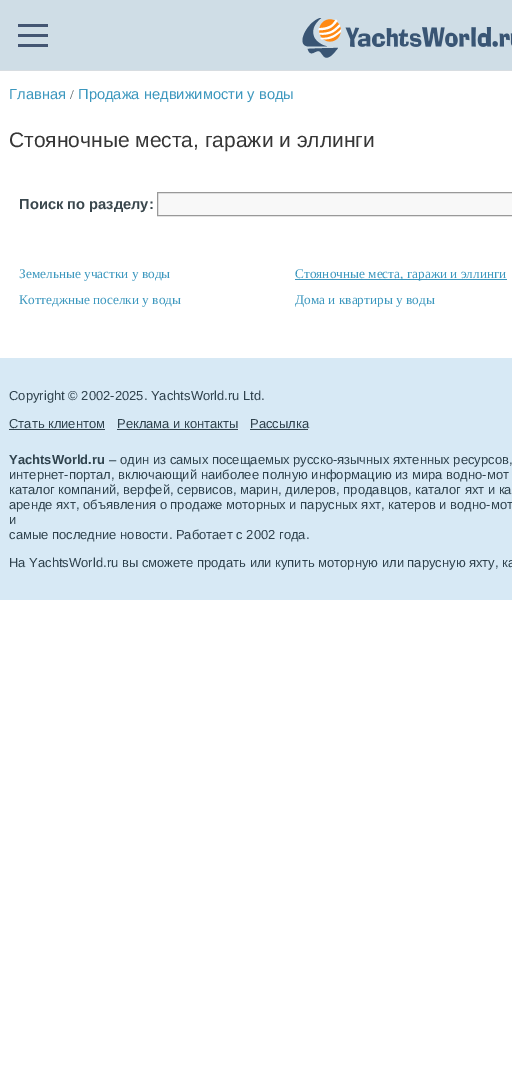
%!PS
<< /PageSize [512 1066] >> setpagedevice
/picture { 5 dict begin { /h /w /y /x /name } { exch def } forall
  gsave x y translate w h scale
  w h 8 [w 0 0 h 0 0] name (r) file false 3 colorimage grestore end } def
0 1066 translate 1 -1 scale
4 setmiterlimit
1 setgray
0 0 512 1066 rectfill
0.812 0.867 0.902 setrgbcolor
0 0 512 70 rectfill
0.847 0.867 0.882 setrgbcolor
0 70 512 1 rectfill
(img1.rgb) 18 24 30 23 picture
(img2.rgb) 302 18 210 40 picture
/LiberationSans-Regular [14.7 0 0 -14.7 0 0] selectfont
0.231 0.592 0.745 setrgbcolor
9 99 moveto (Главная) show
/LiberationSerif-Regular [13.3 0 0 -13.3 0 0] selectfont
0.227 0.278 0.302 setrgbcolor
70 99 moveto (/) show
/LiberationSans-Regular [14.7 0 0 -14.7 0 0] selectfont
0.231 0.592 0.745 setrgbcolor
78 99 moveto (Продажа недвижимости у воды) show
/LiberationSans-Regular [21 0 0 -21 0 0] selectfont
0.212 setgray
9 147 moveto (Стояночные места, гаражи и эллинги) show
/LiberationSans-Bold [14.7 0 0 -14.7 0 0] selectfont
0.227 0.278 0.302 setrgbcolor
19 209 moveto (Поиск по разделу:) show
0.973 setgray
newpath 157.5 192.5 moveto 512.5 192.5 lineto 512.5 215.5 lineto 157.5 215.5 lineto closepath gsave fill grestore
0.6 setgray
stroke
/LiberationSerif-Regular [13.3 0 0 -13.3 0 0] selectfont
0.231 0.592 0.745 setrgbcolor
19 278 moveto (Земельные участки у воды) show
295 279 212 1 rectfill
295 278 moveto (Стояночные места, гаражи и эллинги) show
19 304 moveto (Коттеджные поселки у воды) show
295 304 moveto (Дома и квартиры у воды) show
0.843 0.914 0.961 setrgbcolor
0 358 512 242 rectfill
/LiberationSans-Regular [13 0 0 -13 0 0] selectfont
0.184 0.259 0.302 setrgbcolor
9 400 moveto (Copyright © 2002-2025. YachtsWorld.ru Ltd.) show
9 428 moveto (Стать клиентом) show
9 429 96 1 rectfill
117 428 moveto (Реклама и контакты) show
117 429 121 1 rectfill
250 428 moveto (Рассылка) show
250 429 58 1 rectfill
/LiberationSans-Bold [13 0 0 -13 0 0] selectfont
9 464 moveto (YachtsWorld.ru) show
/LiberationSans-Regular [13 0 0 -13 0 0] selectfont
109 464 moveto (– один из самых посещаемых русско-язычных яхтенных ресурсов,) show
9 479 moveto (интернет-портал, включающий наиболее полную информацию из мира водно-мот) show
9 494 moveto (каталог компаний, верфей, сервисов, марин, дилеров, продавцов, каталог яхт и ка) show
9 509 moveto (аренде яхт, объявления о продаже моторных и парусных яхт, катеров и водно-мот) show
9 524 moveto (и) show
9 539 moveto (самые последние новости. Работает с 2002 года.) show
9 567 moveto (На YachtsWorld.ru вы сможете продать или купить моторную или парусную яхту, ка) show
showpage
